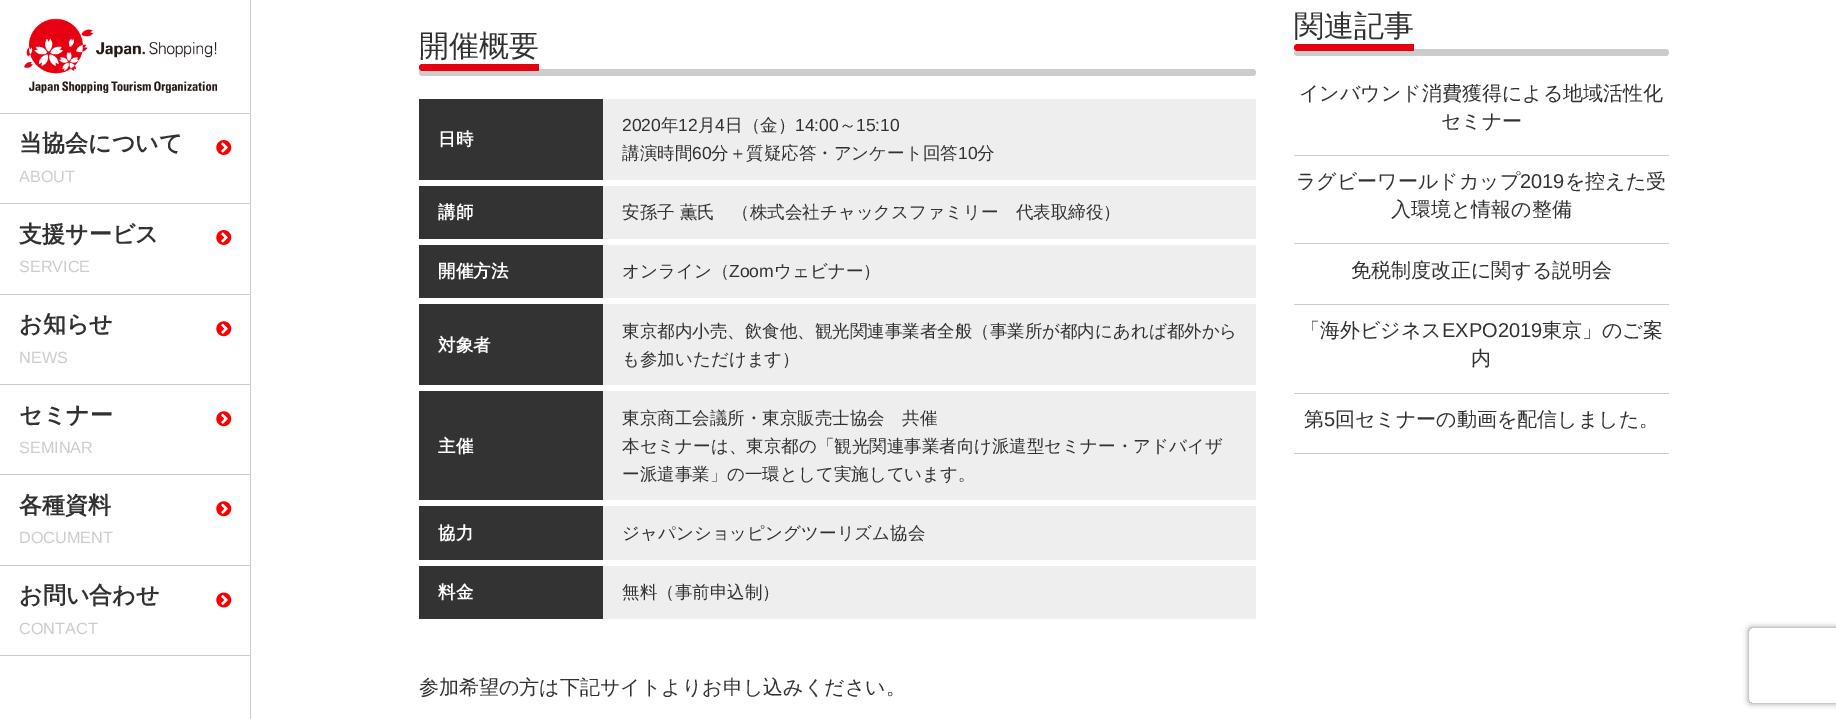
%!PS
<< /PageSize [1836 719] /PageUsesTransparency true >> setpagedevice
/alpha { dup .setfillconstantalpha .setstrokeconstantalpha } def
/roundrect { 5 dict begin { /r /h /w /y /x } { exch def } forall
  x r add y moveto x w add y 2 copy h add r arct x w add y h add x 1 index r arct
  x y h add x y r arct x y 2 copy exch w add exch r arct closepath end } def
/shadow { 12 dict begin { /a /b /q /h /w /y /x } { exch def } forall gsave /was 0 def
  9 -2 -9 { dup b mul 4 div /e exch def 1 sub .425 mul 2.718 exch exp 1 add a .99 .min exch div /now exch def
    1 1 now sub 1 was sub div sub alpha /was now def
    w h .min e 2 mul add 0 gt { x e sub y e sub w e 2 mul add h e 2 mul add
      q e add b .6 mul add w h .min 2 div e add .min 0 .max roundrect fill } if } for grestore end } def
/picture { 5 dict begin { /h /w /y /x /name } { exch def } forall
  gsave x y translate w h scale
  w h 8 [w 0 0 h 0 0] name (r) file false 3 colorimage grestore end } def
0 .pushpdf14devicefilter
0 719 translate 1 -1 scale
4 setmiterlimit
1 setgray
0 0 1836 719 rectfill
(img1.rgb) 24 18 194 76 picture
0.8 setgray
0 113 250 1 rectfill
0 203 250 1 rectfill
/WenQuanYiZenHei-Bold [23 0 0 -23 0 0] selectfont
0.192 setgray
19 151 moveto (当協会について) show
(img2.rgb) 216 140 16 15 picture
/LiberationSans-Regular [16.25 0 0 -16.25 0 0] selectfont
0.8 setgray
19 182 moveto (ABOUT) show
0 294 250 1 rectfill
/WenQuanYiZenHei-Bold [23 0 0 -23 0 0] selectfont
0.192 setgray
19 242 moveto (支援サービス) show
(img2.rgb) 216 230 16 15 picture
/LiberationSans-Regular [16.25 0 0 -16.25 0 0] selectfont
0.8 setgray
19 272 moveto (SERVICE) show
0 384 250 1 rectfill
/WenQuanYiZenHei-Bold [23 0 0 -23 0 0] selectfont
0.192 setgray
19 332 moveto (お知らせ) show
(img3.rgb) 216 321 16 16 picture
/LiberationSans-Regular [16.25 0 0 -16.25 0 0] selectfont
0.8 setgray
19 363 moveto (NEWS) show
0 474 250 1 rectfill
/WenQuanYiZenHei-Bold [23 0 0 -23 0 0] selectfont
0.192 setgray
19 423 moveto (セミナー) show
(img3.rgb) 216 411 16 16 picture
/LiberationSans-Regular [16.25 0 0 -16.25 0 0] selectfont
0.8 setgray
19 453 moveto (SEMINAR) show
0 565 250 1 rectfill
/WenQuanYiZenHei-Bold [23 0 0 -23 0 0] selectfont
0.192 setgray
19 513 moveto (各種資料) show
(img3.rgb) 216 501 16 16 picture
/LiberationSans-Regular [16.25 0 0 -16.25 0 0] selectfont
0.8 setgray
19 543 moveto (DOCUMENT) show
0 655 250 1 rectfill
/WenQuanYiZenHei-Bold [23 0 0 -23 0 0] selectfont
0.192 setgray
19 603 moveto (お問い合わせ) show
(img4.rgb) 216 592 16 16 picture
/LiberationSans-Regular [16.25 0 0 -16.25 0 0] selectfont
0.8 setgray
19 634 moveto (CONTACT) show
250 0 1 719 rectfill
/WenQuanYiZenHei-Medium [30 0 0 -30 0 0] selectfont
0.192 setgray
419 56 moveto (開催概要) show
0.8 setgray
419 69 837 7 3.5 roundrect fill
0.902 0 0.071 setrgbcolor
newpath 422.5 64 moveto 539 64 lineto 539 71 lineto 422.5 71 lineto 420.5 71 419 69.5 419 67.5 curveto 419 65.5 420.5 64 422.5 64 curveto closepath fill
0.2 setgray
419 99 184 81 rectfill
/WenQuanYiZenHei-Bold [17.5 0 0 -17.5 0 0] selectfont
1 setgray
438 145 moveto (日時) show
0.933 setgray
603 99 653 81 rectfill
/LiberationSans-Regular [17.5 0 0 -17.5 0 0] selectfont
0.192 setgray
622 131 moveto (2020) show
/WenQuanYiZenHei-Medium [17.5 0 0 -17.5 0 0] selectfont
661 131 moveto (年) show
/LiberationSans-Regular [17.5 0 0 -17.5 0 0] selectfont
678 131 moveto (12) show
/WenQuanYiZenHei-Medium [17.5 0 0 -17.5 0 0] selectfont
698 131 moveto (月) show
/LiberationSans-Regular [17.5 0 0 -17.5 0 0] selectfont
715 131 moveto (4) show
/WenQuanYiZenHei-Medium [17.5 0 0 -17.5 0 0] selectfont
725 131 moveto (日（金）) show
/LiberationSans-Regular [17.5 0 0 -17.5 0 0] selectfont
795 131 moveto (14:00) show
/WenQuanYiZenHei-Medium [17.5 0 0 -17.5 0 0] selectfont
839 131 moveto (～) show
/LiberationSans-Regular [17.5 0 0 -17.5 0 0] selectfont
856 131 moveto (15:10) show
/WenQuanYiZenHei-Medium [17.5 0 0 -17.5 0 0] selectfont
622 159 moveto (講演時間) show
/LiberationSans-Regular [17.5 0 0 -17.5 0 0] selectfont
692 159 moveto (60) show
/WenQuanYiZenHei-Medium [17.5 0 0 -17.5 0 0] selectfont
711 159 moveto (分＋質疑応答・アンケート回答) show
/LiberationSans-Regular [17.5 0 0 -17.5 0 0] selectfont
958 159 moveto (10) show
/WenQuanYiZenHei-Medium [17.5 0 0 -17.5 0 0] selectfont
977 159 moveto (分) show
0.2 setgray
419 186 184 53 rectfill
/WenQuanYiZenHei-Bold [17.5 0 0 -17.5 0 0] selectfont
1 setgray
438 218 moveto (講師) show
0.933 setgray
603 186 653 53 rectfill
/WenQuanYiZenHei-Medium [17.5 0 0 -17.5 0 0] selectfont
0.192 setgray
622 218 moveto (安孫子 薫氏　（株式会社チャックスファミリー　代表取締役）) show
0.2 setgray
419 245 184 53 rectfill
/WenQuanYiZenHei-Bold [17.5 0 0 -17.5 0 0] selectfont
1 setgray
438 277 moveto (開催方法) show
0.933 setgray
603 245 653 53 rectfill
/WenQuanYiZenHei-Medium [17.5 0 0 -17.5 0 0] selectfont
0.192 setgray
622 277 moveto (オンライン（) show
/LiberationSans-Regular [17.5 0 0 -17.5 0 0] selectfont
729 277 moveto (Zoom) show
/WenQuanYiZenHei-Medium [17.5 0 0 -17.5 0 0] selectfont
774 277 moveto (ウェビナー）) show
0.2 setgray
419 304 184 81 rectfill
/WenQuanYiZenHei-Bold [17.5 0 0 -17.5 0 0] selectfont
1 setgray
438 351 moveto (対象者) show
0.933 setgray
603 304 653 81 rectfill
/WenQuanYiZenHei-Medium [17.5 0 0 -17.5 0 0] selectfont
0.192 setgray
622 337 moveto (東京都内小売、飲食他、観光関連事業者全般（事業所が都内にあれば都外から) show
622 365 moveto (も参加いただけます）) show
0.2 setgray
419 391 184 109 rectfill
/WenQuanYiZenHei-Bold [17.5 0 0 -17.5 0 0] selectfont
1 setgray
438 452 moveto (主催) show
0.933 setgray
603 391 653 109 rectfill
/WenQuanYiZenHei-Medium [17.5 0 0 -17.5 0 0] selectfont
0.192 setgray
622 424 moveto (東京商工会議所・東京販売士協会　共催) show
622 452 moveto (本セミナーは、東京都の「観光関連事業者向け派遣型セミナー・アドバイザ) show
622 480 moveto (ー派遣事業」の一環として実施しています。) show
0.2 setgray
419 506 184 54 rectfill
/WenQuanYiZenHei-Bold [17.5 0 0 -17.5 0 0] selectfont
1 setgray
438 539 moveto (協力) show
0.933 setgray
603 506 653 54 rectfill
/WenQuanYiZenHei-Medium [17.5 0 0 -17.5 0 0] selectfont
0.192 setgray
622 539 moveto (ジャパンショッピングツーリズム協会) show
0.2 setgray
419 566 184 53 rectfill
/WenQuanYiZenHei-Bold [17.5 0 0 -17.5 0 0] selectfont
1 setgray
438 598 moveto (料金) show
0.933 setgray
603 566 653 53 rectfill
/WenQuanYiZenHei-Medium [17.5 0 0 -17.5 0 0] selectfont
0.192 setgray
622 598 moveto (無料（事前申込制）) show
/WenQuanYiZenHei-Medium [20 0 0 -20 0 0] selectfont
419 694 moveto (参加希望の方は下記サイトよりお申し込みください。) show
/WenQuanYiZenHei-Medium [30 0 0 -30 0 0] selectfont
1294 36 moveto (関連記事) show
0.8 setgray
1294 49 375 7 3.5 roundrect fill
0.902 0 0.071 setrgbcolor
newpath 1297.5 44 moveto 1414 44 lineto 1414 51 lineto 1297.5 51 lineto 1295.5 51 1294 49.5 1294 47.5 curveto 1294 45.5 1295.5 44 1297.5 44 curveto closepath fill
0.8 setgray
1294 155 375 1 rectfill
/WenQuanYiZenHei-Medium [20 0 0 -20 0 0] selectfont
0.192 setgray
1299 100 moveto (インバウンド消費獲得による地域活性化) show
1441 128 moveto (セミナー) show
0.8 setgray
1294 243 375 1 rectfill
0.192 setgray
1296 188 moveto (ラグビーワールドカップ) show
/LiberationSans-Regular [20 0 0 -20 0 0] selectfont
1520 188 moveto (2019) show
/WenQuanYiZenHei-Medium [20 0 0 -20 0 0] selectfont
1565 188 moveto (を控えた受) show
1391 216 moveto (入環境と情報の整備) show
0.8 setgray
1294 304 375 1 rectfill
0.192 setgray
1351 277 moveto (免税制度改正に関する説明会) show
0.8 setgray
1294 393 375 1 rectfill
0.192 setgray
1300 337 moveto (「海外ビジネス) show
/LiberationSans-Regular [20 0 0 -20 0 0] selectfont
1442 337 moveto (EXPO2019) show
/WenQuanYiZenHei-Medium [20 0 0 -20 0 0] selectfont
1542 337 moveto (東京」のご案) show
1471 365 moveto (内) show
0.8 setgray
1294 453 375 1 rectfill
0.192 setgray
1304 426 moveto (第) show
/LiberationSans-Regular [20 0 0 -20 0 0] selectfont
1324 426 moveto (5) show
/WenQuanYiZenHei-Medium [20 0 0 -20 0 0] selectfont
1335 426 moveto (回セミナーの動画を配信しました。) show
gsave
newpath 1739 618 moveto 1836 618 lineto 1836 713 lineto 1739 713 lineto closepath 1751.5 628 moveto 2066.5 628 lineto 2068 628 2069 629 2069 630.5 curveto 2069 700.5 lineto 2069 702 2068 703 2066.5 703 curveto 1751.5 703 lineto 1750 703 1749 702 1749 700.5 curveto 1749 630.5 lineto 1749 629 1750 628 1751.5 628 curveto closepath eoclip newpath
0.502 setgray
1749 628 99 75 2.5 3 1 shadow
grestore
.poppdf14devicefilter showpage
